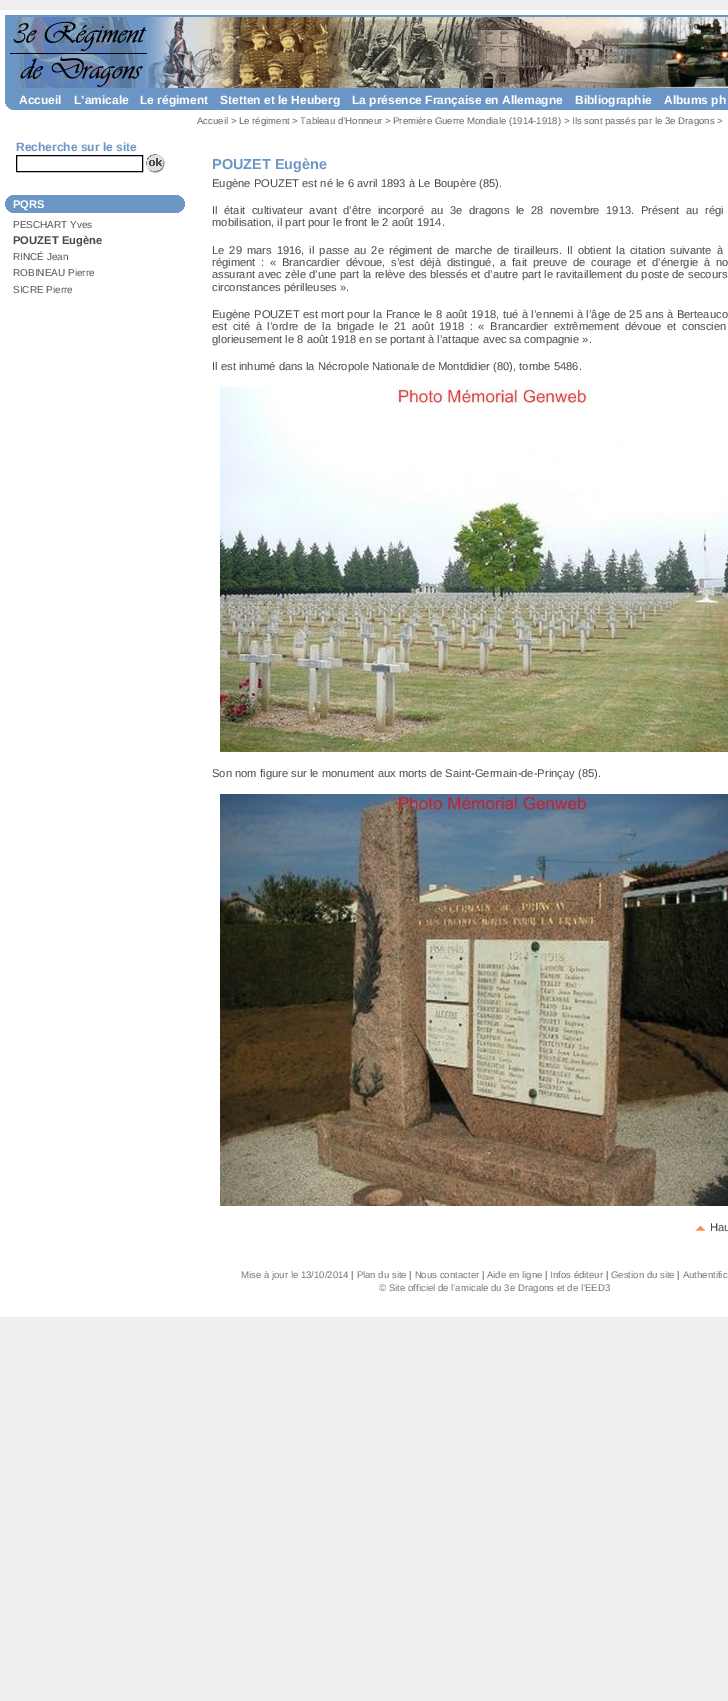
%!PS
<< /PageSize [728 1701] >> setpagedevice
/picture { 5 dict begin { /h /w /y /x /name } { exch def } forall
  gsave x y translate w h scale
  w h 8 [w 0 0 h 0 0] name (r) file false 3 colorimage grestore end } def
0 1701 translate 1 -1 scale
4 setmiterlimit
0.933 setgray
0 0 728 1701 rectfill
1 setgray
0 10 728 1307 rectfill
(img1.rgb) 5 15 723 75 picture
0.424 0.588 0.776 setrgbcolor
5 90 723 20 rectfill
(img2.rgb) 5 104 6 6 picture
/LiberationSans-Bold [12 0 0 -12 0 0] selectfont
1 setgray
19 104 moveto (Accueil) show
74 104 moveto (L’amicale) show
140 104 moveto (Le régiment) show
220 104 moveto (Stetten et le Heuberg) show
352 104 moveto (La présence Française en Allemagne) show
575 104 moveto (Bibliographie) show
664 104 moveto (Albums ph) show
0.424 0.588 0.776 setrgbcolor
16 151 moveto (Recherche sur le site) show
0 setgray
16.5 155.5 126 16 rectstroke
(img3.rgb) 146 154 19 19 picture
0.424 0.588 0.776 setrgbcolor
5 195 180 18 rectfill
(img2.rgb) 5 207 6 6 picture
(img4.rgb) 179 207 6 6 picture
(img5.rgb) 5 195 6 6 picture
(img6.rgb) 179 195 6 6 picture
/LiberationSans-Bold [11.2 0 0 -11.2 0 0] selectfont
1 setgray
13 208 moveto (PQRS) show
/LiberationSans-Regular [10 0 0 -10 0 0] selectfont
0.333 setgray
13 228 moveto (PESCHART Yves) show
/LiberationSans-Bold [11.2 0 0 -11.2 0 0] selectfont
0.282 setgray
13 244 moveto (POUZET Eugène) show
/LiberationSans-Regular [10 0 0 -10 0 0] selectfont
0.333 setgray
13 260 moveto (RINCÉ Jean) show
13 276 moveto (ROBINEAU Pierre) show
13 293 moveto (SICRE Pierre) show
/LiberationSans-Regular [9.6 0 0 -9.6 0 0] selectfont
0.396 setgray
197 124 moveto (Accueil > Le régiment > Tableau d’Honneur > Première Guerre Mondiale \(1914-1918\) > Ils sont passés par le 3e Dragons >) show
/LiberationSans-Bold [14.5 0 0 -14.5 0 0] selectfont
0.424 0.588 0.776 setrgbcolor
212 169 moveto (POUZET Eugène) show
/LiberationSans-Regular [11.2 0 0 -11.2 0 0] selectfont
0.282 setgray
212 187 moveto (Eugène POUZET est né le 6 avril 1893 à Le Boupère \(85\).) show
212 214 moveto 3.4 0 32 (Il était cultivateur avant d’être incorporé au 3e dragons le 28 novembre 1913. Présent au régi) widthshow
212 226 moveto (mobilisation, il part pour le front le 2 août 1914.) show
212 254 moveto 1.8 0 32 (Le 29 mars 1916, il passe au 2e régiment de marche de tirailleurs. Il obtient la citation suivante à) widthshow
212 266 moveto 2.6 0 32 (régiment : « Brancardier dévoue, s’est déjà distingué, a fait preuve de courage et d’énergie à no) widthshow
212 278 moveto 0.25 0 32 (assurant avec zèle d’une part la relève des blessés et d’autre part le ravitaillement du poste de secours) widthshow
212 291 moveto (circonstances périlleuses ».) show
212 318 moveto 0.4 0 32 (Eugène POUZET est mort pour la France le 8 août 1918, tué à l’ennemi à l’âge de 25 ans à Berteauco) widthshow
212 330 moveto 2.5 0 32 (est cité à l’ordre de la brigade le 21 août 1918 : « Brancardier extrêmement dévoue et conscien) widthshow
212 343 moveto (glorieusement le 8 août 1918 en se portant à l’attaque avec sa compagnie ».) show
212 370 moveto (Il est inhumé dans la Nécropole Nationale de Montdidier \(80\), tombe 5486.) show
(img7.rgb) 220 387 508 365 picture
212 777 moveto (Son nom figure sur le monument aux morts de Saint-Germain-de-Prinçay \(85\).) show
(img8.rgb) 220 794 508 412 picture
(img9.rgb) 695 1225 11 6 picture
710 1231 moveto (Hau) show
/LiberationSans-Regular [9.6 0 0 -9.6 0 0] selectfont
0.471 0.463 0.412 setrgbcolor
241 1278 moveto (Mise à jour le 13/10/2014 | Plan du site | Nous contacter | Aide en ligne | Infos éditeur | Gestion du site | Authentific) show
379 1291 moveto (© Site officiel de l’amicale du 3e Dragons et de l’EED3) show
showpage
